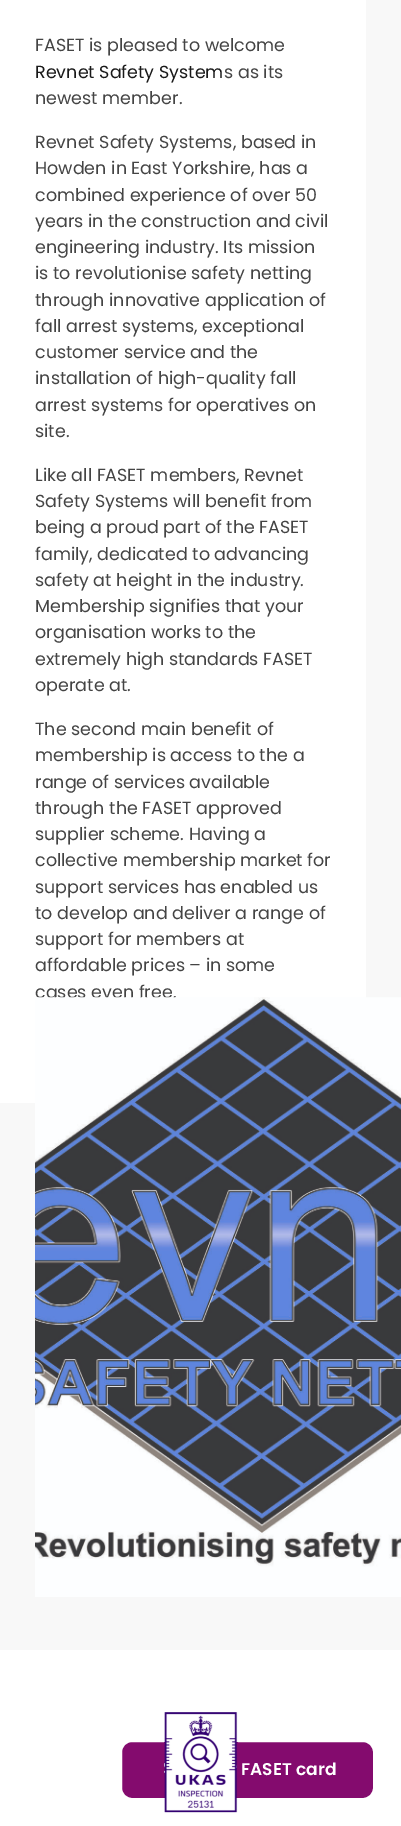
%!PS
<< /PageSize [401 1826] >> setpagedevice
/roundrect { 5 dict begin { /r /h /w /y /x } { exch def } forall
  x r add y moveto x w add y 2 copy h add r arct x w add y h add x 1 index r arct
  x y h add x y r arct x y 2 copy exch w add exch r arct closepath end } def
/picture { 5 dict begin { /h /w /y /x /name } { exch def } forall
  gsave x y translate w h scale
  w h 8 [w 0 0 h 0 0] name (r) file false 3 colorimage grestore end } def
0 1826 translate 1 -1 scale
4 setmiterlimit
1 setgray
0 0 401 1826 rectfill
0.973 setgray
0 0 401 1650 rectfill
1 setgray
0 0 366 1103 rectfill
/Poppins-Regular [17.5 0 0 -17.5 0 0] selectfont
0.267 setgray
35 51 moveto (FASET is pleased to welcome) show
0.098 setgray
35 78 moveto (Revnet Safety System) show
0.267 setgray
224 78 moveto (s as its) show
35 104 moveto (newest member.) show
35 148 moveto (Revnet Safety Systems, based in) show
35 174 moveto (Howden in East Yorkshire, has a) show
35 201 moveto (combined experience of over 50) show
35 227 moveto (years in the construction and civil) show
35 253 moveto (engineering industry. Its mission) show
35 279 moveto (is to revolutionise safety netting) show
35 306 moveto (through innovative application of) show
35 332 moveto (fall arrest systems, exceptional) show
35 358 moveto (customer service and the) show
35 384 moveto (installation of high-quality fall) show
35 411 moveto (arrest systems for operatives on) show
35 437 moveto (site.) show
35 481 moveto (Like all FASET members, Revnet) show
35 507 moveto (Safety Systems will benefit from) show
35 533 moveto (being a proud part of the FASET) show
35 560 moveto (family, dedicated to advancing) show
35 586 moveto (safety at height in the industry.) show
35 612 moveto (Membership signifies that your) show
35 638 moveto (organisation works to the) show
35 665 moveto (extremely high standards FASET) show
35 691 moveto (operate at.) show
35 735 moveto (The second main benefit of) show
35 761 moveto (membership is access to the a) show
35 788 moveto (range of services available) show
35 814 moveto (through the FASET approved) show
35 840 moveto (supplier scheme. Having a) show
35 866 moveto (collective membership market for) show
35 893 moveto (support services has enabled us) show
35 919 moveto (to develop and deliver a range of) show
35 945 moveto (support for members at) show
35 971 moveto (affordable prices – in some) show
35 998 moveto (cases even free.) show
(img1.rgb) 35 997 366 600 picture
0.518 0.043 0.431 setrgbcolor
120.5 1740.5 254 59 11.5 roundrect gsave fill grestore
1 setgray
3 setlinewidth
stroke
(img2.rgb) 164 1712 74 101 picture
/Poppins-SemiBold [17 0 0 -17 0 0] selectfont
241 1775 moveto 0.1 0 (FASET card) ashow
showpage
